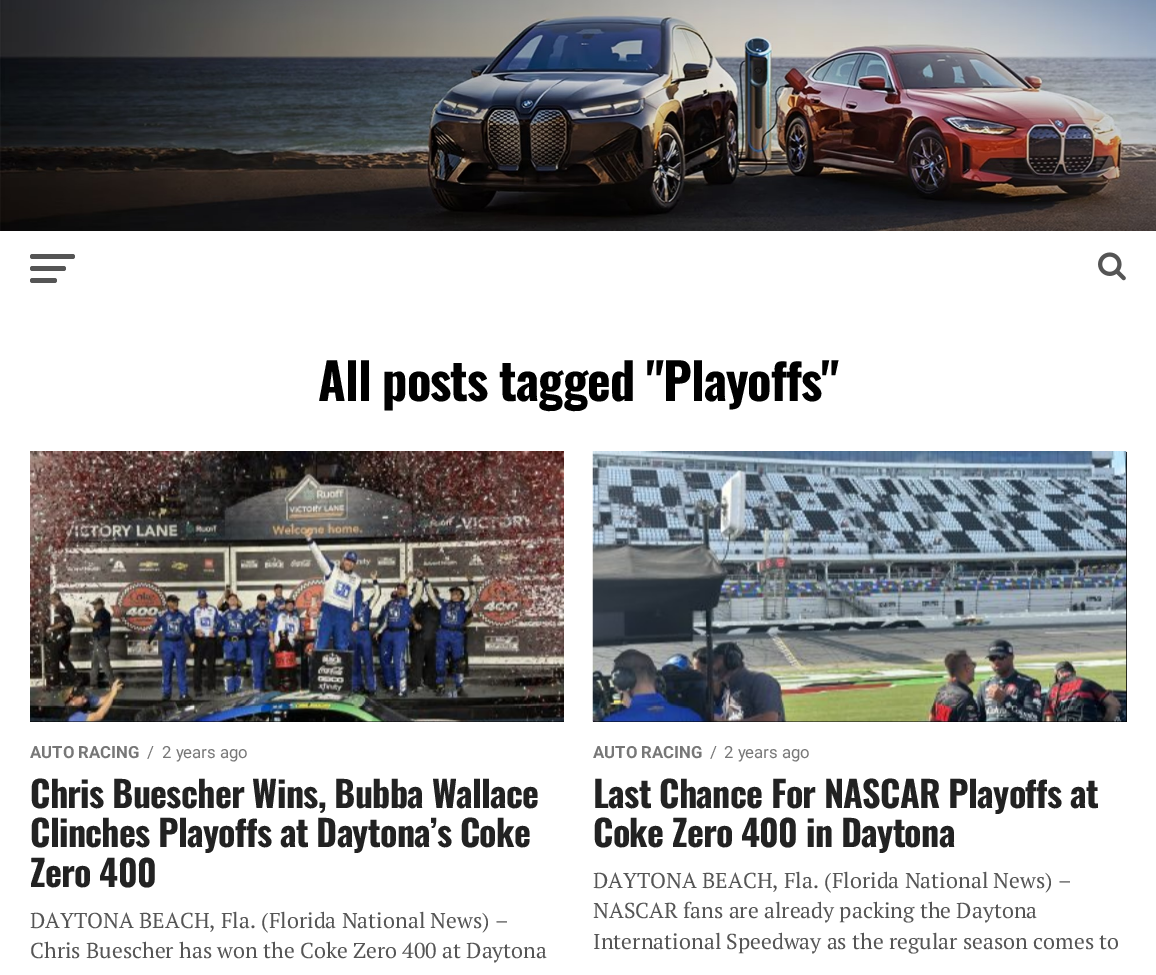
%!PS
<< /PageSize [1156 975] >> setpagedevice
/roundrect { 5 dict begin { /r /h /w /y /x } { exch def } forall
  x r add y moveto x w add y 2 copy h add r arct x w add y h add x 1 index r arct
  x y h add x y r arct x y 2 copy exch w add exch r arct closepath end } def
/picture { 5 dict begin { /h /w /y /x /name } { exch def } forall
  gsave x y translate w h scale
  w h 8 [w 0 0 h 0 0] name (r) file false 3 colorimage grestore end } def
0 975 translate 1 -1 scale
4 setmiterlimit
1 setgray
0 0 1156 975 rectfill
(img1.rgb) 0 0 1156 231 picture
0.333 setgray
30 254 45 5 2.5 roundrect fill
30 266 36 5 2.5 roundrect fill
30 278 27 5 2.5 roundrect fill
(img2.rgb) 1098 252 28 29 picture
/Oswald-Bold [50.4 0 0 -50.4 0 0] selectfont
0 setgray
318 401 moveto -1 0 (All posts tagged "Playoffs") ashow
30 721 534 1 rectfill
(img3.rgb) 30 451 534 271 picture
/Roboto-Bold [16.75 0 0 -16.75 0 0] selectfont
0.467 setgray
30 758 moveto (AUTO RACING) show
/Roboto-Regular [16.75 0 0 -16.75 0 0] selectfont
147 758 moveto (/) show
162 758 moveto (2 years ago) show
/Oswald-Bold [36 0 0 -36 0 0] selectfont
0.133 setgray
30 808 moveto -0.7 0 (Chris Buescher Wins, Bubba Wallace) ashow
30 847 moveto -0.7 0 (Clinches Playoffs at Daytona’s Coke) ashow
30 887 moveto -0.7 0 (Zero 400) ashow
/PTSerif-Regular [21.6 0 0 -21.6 0 0] selectfont
0.333 setgray
30 928 moveto (DAYTONA BEACH, Fla. \(Florida National News\) –) show
30 958 moveto (Chris Buescher has won the Coke Zero 400 at Daytona) show
0 setgray
593 452 534 270 rectfill
(img4.rgb) 592 451 535 271 picture
/Roboto-Bold [16.75 0 0 -16.75 0 0] selectfont
0.467 setgray
593 758 moveto (AUTO RACING) show
/Roboto-Regular [16.75 0 0 -16.75 0 0] selectfont
710 758 moveto (/) show
724 758 moveto (2 years ago) show
/Oswald-Bold [36 0 0 -36 0 0] selectfont
0.133 setgray
593 808 moveto -0.7 0 (Last Chance For NASCAR Playoffs at) ashow
593 847 moveto -0.7 0 (Coke Zero 400 in Daytona) ashow
/PTSerif-Regular [21.6 0 0 -21.6 0 0] selectfont
0.333 setgray
593 888 moveto (DAYTONA BEACH, Fla. \(Florida National News\) –) show
593 918 moveto (NASCAR fans are already packing the Daytona) show
593 949 moveto (International Speedway as the regular season comes to) show
showpage
